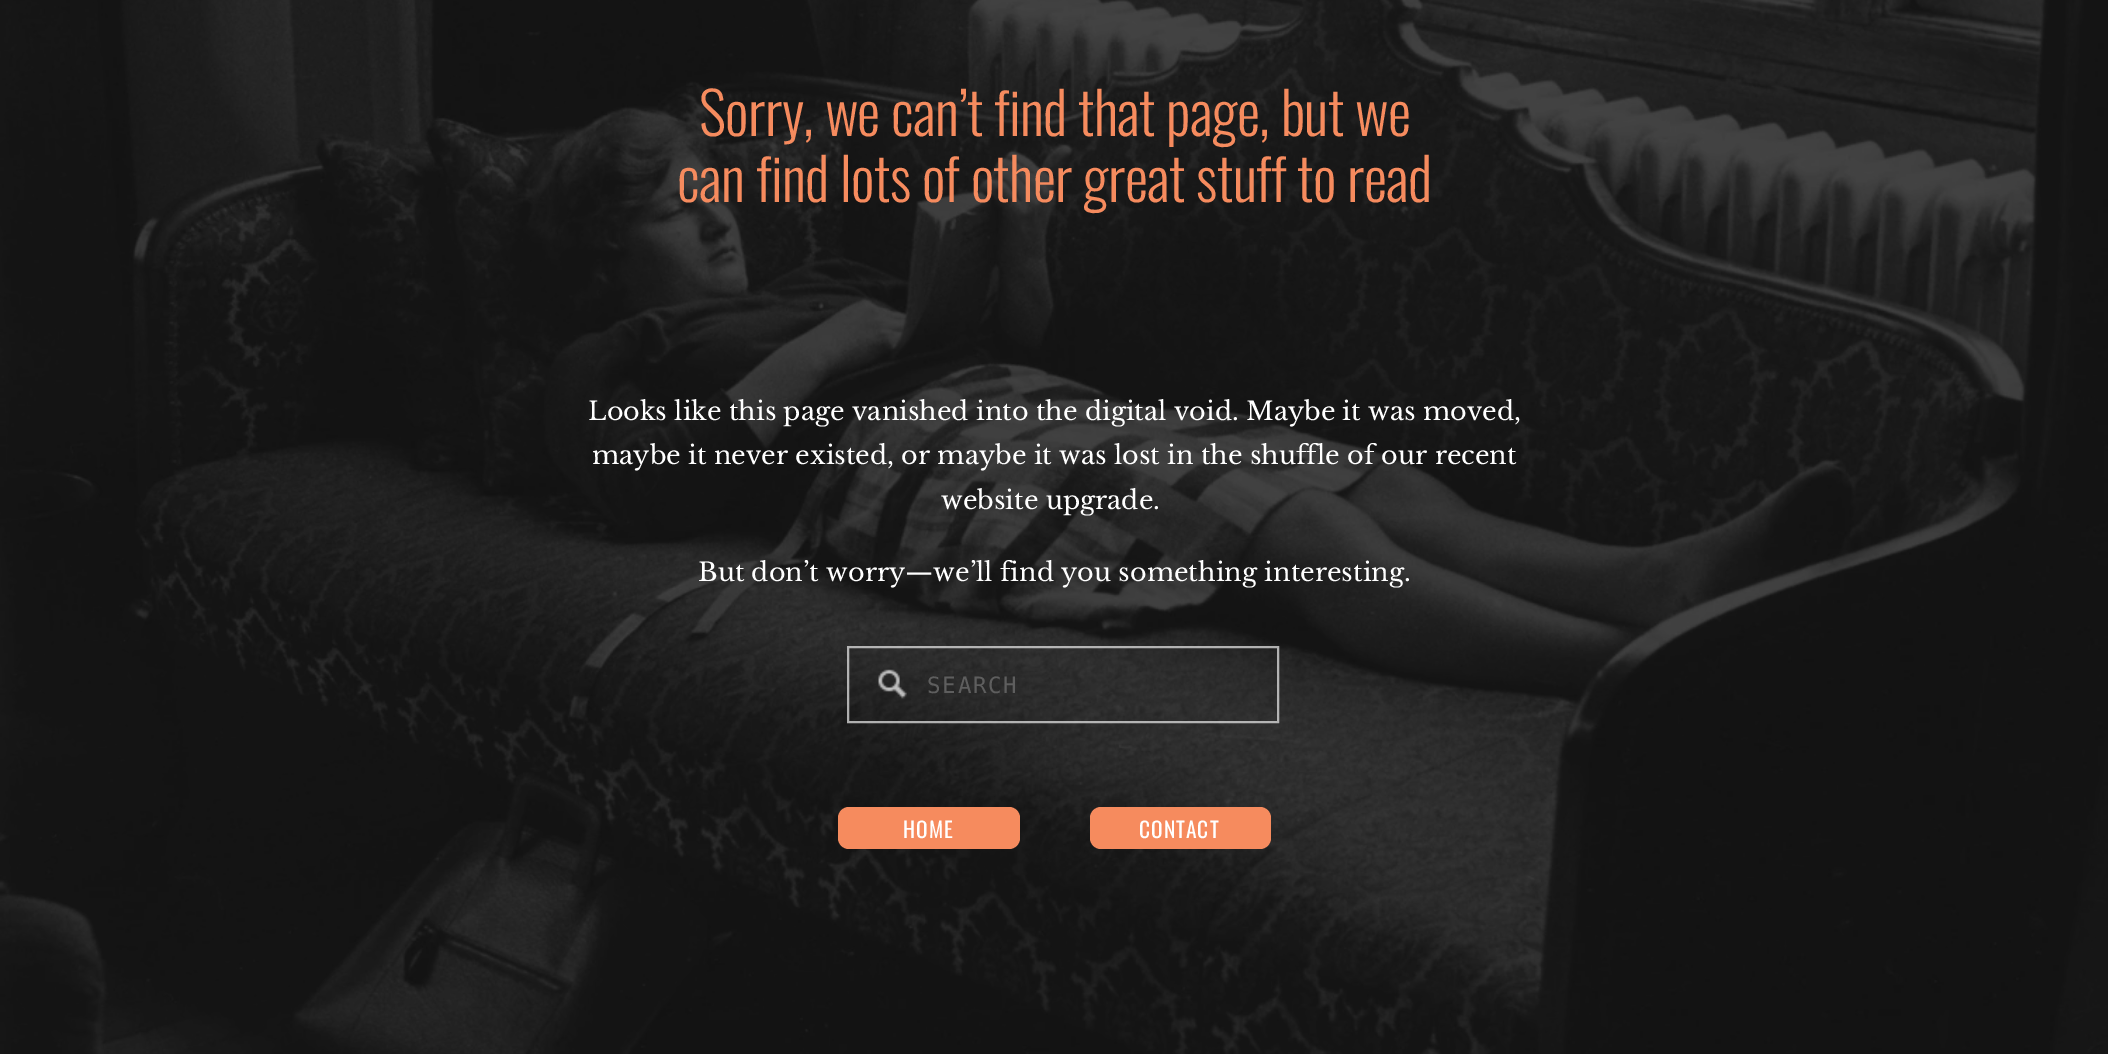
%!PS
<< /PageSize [2108 1054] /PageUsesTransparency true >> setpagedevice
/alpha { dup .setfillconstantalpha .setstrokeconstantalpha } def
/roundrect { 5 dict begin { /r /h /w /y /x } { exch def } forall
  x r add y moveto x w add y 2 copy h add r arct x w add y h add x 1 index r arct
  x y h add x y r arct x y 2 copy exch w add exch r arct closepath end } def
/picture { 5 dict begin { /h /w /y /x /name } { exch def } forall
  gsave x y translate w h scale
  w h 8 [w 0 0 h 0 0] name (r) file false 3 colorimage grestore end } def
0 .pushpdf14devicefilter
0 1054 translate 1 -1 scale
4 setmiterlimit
1 setgray
0 0 2108 1054 rectfill
(img1.rgb) 0 0 2108 1054 picture
/Oswald-Light [58.4 0 0 -58.4 0 0] selectfont
0.965 0.545 0.369 setrgbcolor
699 136 moveto -0.6 0 (Sorry, we can’t find that page, but we) ashow
677 202 moveto -0.6 0 (can find lots of other great stuff to read) ashow
/LibreBaskerville-Regular [25.45 0 0 -25.45 0 0] selectfont
1 setgray
588 420 moveto (Looks like this page vanished into the digital void. Maybe it was moved,) show
592 464 moveto (maybe it never existed, or maybe it was lost in the shuffle of our recent) show
941 509 moveto (website upgrade.) show
698 581 moveto (But don’t worry—we’ll find you something interesting.) show
(img2.rgb) 878 669 29 30 picture
0.7 alpha
0.933 setgray
2 setlinewidth
848 647 430 75 rectstroke
/DejaVuSansMono-Regular [22.5 0 0 -22.5 0 0] selectfont
1 alpha
0.369 setgray
927 693 moveto 1.75 0 (SEARCH) ashow
0.965 0.545 0.369 setrgbcolor
838 807 182 42 11 roundrect fill
/Oswald-Regular [21.5 0 0 -21.5 0 0] selectfont
1 setgray
903 838 moveto 1 0 (HOME) ashow
0.965 0.545 0.369 setrgbcolor
1090 807 181 42 11 roundrect fill
1 setgray
1139 838 moveto 1 0 (CONTACT) ashow
.poppdf14devicefilter showpage
